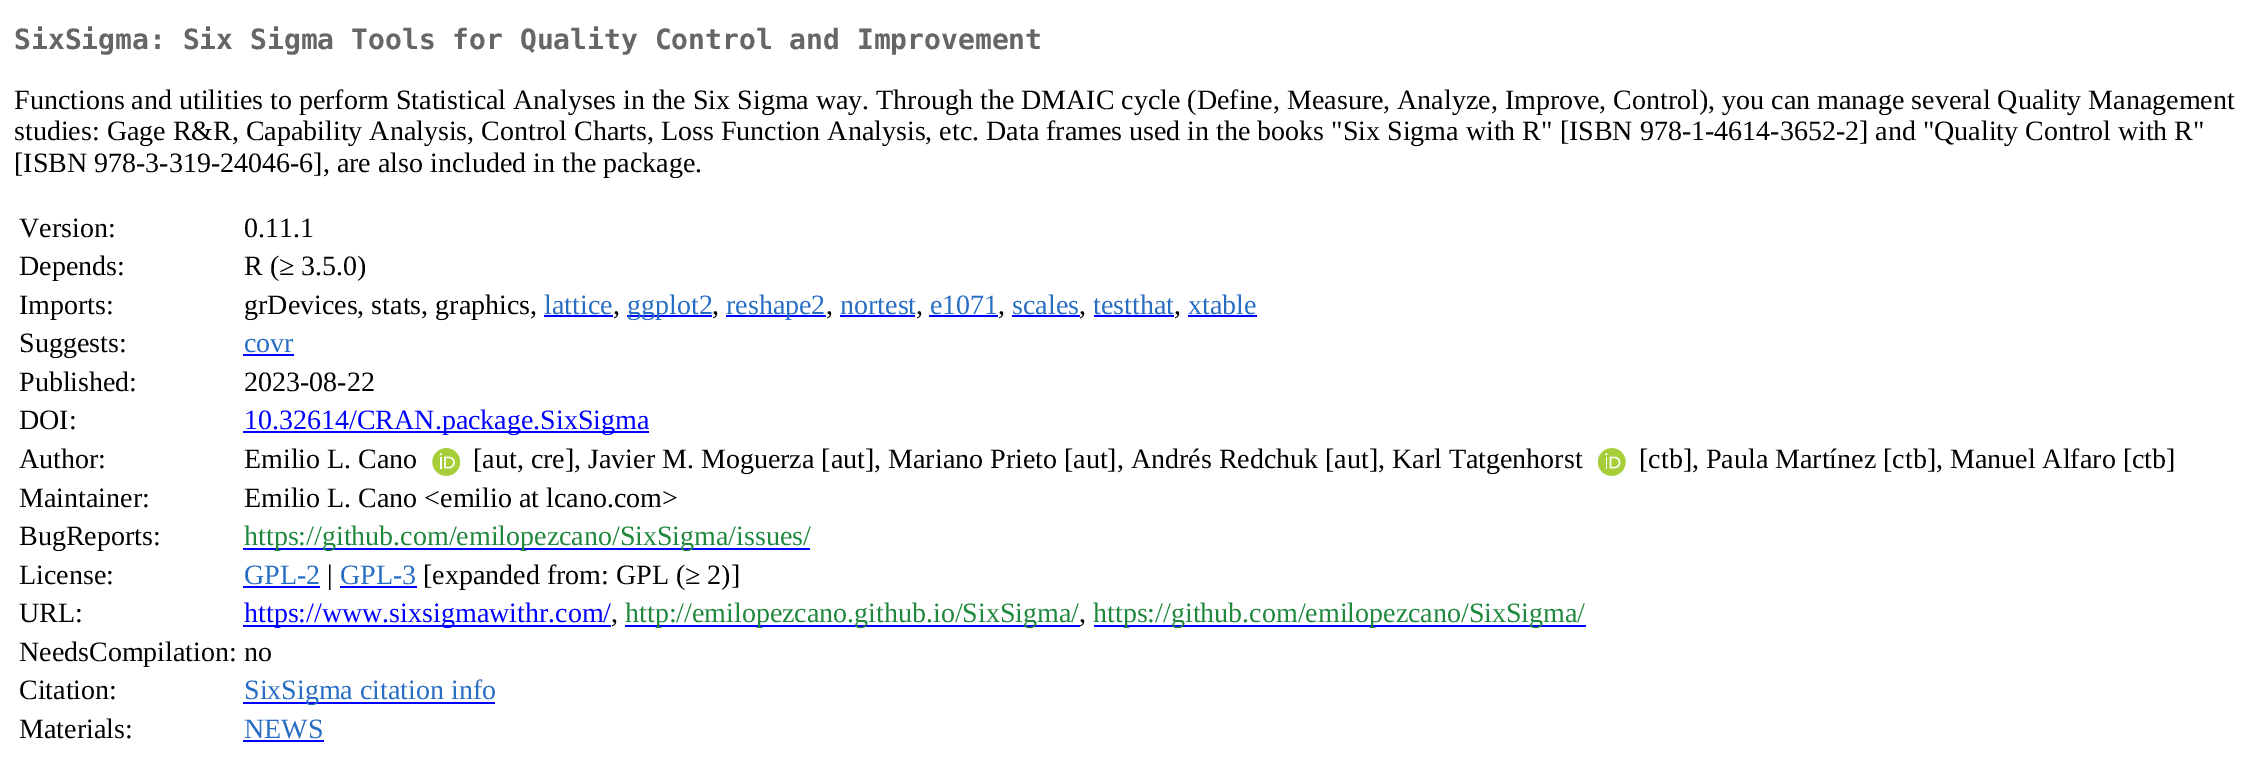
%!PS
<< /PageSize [2253 763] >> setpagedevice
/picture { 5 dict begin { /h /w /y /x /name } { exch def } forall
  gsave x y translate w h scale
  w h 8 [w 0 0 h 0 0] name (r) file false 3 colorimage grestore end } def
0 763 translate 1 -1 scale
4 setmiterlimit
1 setgray
0 0 2253 763 rectfill
/DejaVuSansMono-Bold [28 0 0 -28 0 0] selectfont
0.4 setgray
14 49 moveto (SixSigma: Six Sigma Tools for Quality Control and Improvement) show
/LiberationSerif-Regular [28 0 0 -28 0 0] selectfont
0 setgray
14 109 moveto (Functions and utilities to perform Statistical Analyses in the Six Sigma way. Through the DMAIC cycle \(Define, Measure, Analyze, Improve, Control\), you can manage several Quality Management) show
14 140 moveto (studies: Gage R&R, Capability Analysis, Control Charts, Loss Function Analysis, etc. Data frames used in the books "Six Sigma with R" [ISBN 978-1-4614-3652-2] and "Quality Control with R") show
14 172 moveto ([ISBN 978-3-319-24046-6], are also included in the package.) show
19 237 moveto (Version:) show
244 237 moveto (0.11.1) show
19 275 moveto (Depends:) show
244 275 moveto (R \(≥ 3.5.0\)) show
19 314 moveto (Imports:) show
244 314 moveto (grDevices, stats, graphics,) show
0.153 0.427 0.765 setrgbcolor
544 314 moveto (lattice) show
0 0 1 setrgbcolor
544 315 69 2 rectfill
0 setgray
613 314 moveto (,) show
0 0 1 setrgbcolor
627 315 85 2 rectfill
0.153 0.427 0.765 setrgbcolor
627 314 moveto (ggplot2) show
0 setgray
712 314 moveto (,) show
0 0 1 setrgbcolor
726 315 100 2 rectfill
0.153 0.427 0.765 setrgbcolor
726 314 moveto (reshape2) show
0 setgray
826 314 moveto (,) show
0.153 0.427 0.765 setrgbcolor
840 314 moveto (nortest) show
0 0 1 setrgbcolor
840 315 75 2 rectfill
0 setgray
916 314 moveto (,) show
0.153 0.427 0.765 setrgbcolor
930 314 moveto (e1071) show
0 0 1 setrgbcolor
929 315 69 2 rectfill
0 setgray
998 314 moveto (,) show
0.153 0.427 0.765 setrgbcolor
1012 314 moveto (scales) show
0 0 1 setrgbcolor
1012 315 68 2 rectfill
0 setgray
1079 314 moveto (,) show
0.153 0.427 0.765 setrgbcolor
1093 314 moveto (testthat) show
0 0 1 setrgbcolor
1094 315 80 2 rectfill
0 setgray
1174 314 moveto (,) show
0.153 0.427 0.765 setrgbcolor
1188 314 moveto (xtable) show
0 0 1 setrgbcolor
1188 315 69 2 rectfill
0 setgray
19 352 moveto (Suggests:) show
0.153 0.427 0.765 setrgbcolor
244 352 moveto (covr) show
0 0 1 setrgbcolor
243 354 51 2 rectfill
0 setgray
19 391 moveto (Published:) show
244 391 moveto (2023-08-22) show
19 429 moveto (DOI:) show
0 0 1 setrgbcolor
243 431 406 2 rectfill
244 429 moveto (10.32614/CRAN.package.SixSigma) show
0 setgray
19 468 moveto (Author:) show
244 468 moveto (Emilio L. Cano) show
(img1.rgb) 432 448 28 28 picture
473 468 moveto ([aut, cre], Javier M. Moguerza [aut], Mariano Prieto [aut], Andrés Redchuk [aut], Karl Tatgenhorst) show
(img2.rgb) 1598 448 28 28 picture
1639 468 moveto ([ctb], Paula Martínez [ctb], Manuel Alfaro [ctb]) show
19 507 moveto (Maintainer:) show
244 507 moveto (Emilio L. Cano <emilio at lcano.com>) show
19 545 moveto (BugReports:) show
0 0 1 setrgbcolor
243 548 567 2 rectfill
0.122 0.533 0.239 setrgbcolor
244 545 moveto (https://github.com/emilopezcano/SixSigma/issues/) show
0 setgray
19 584 moveto (License:) show
0.153 0.427 0.765 setrgbcolor
244 584 moveto (GPL-2) show
0 0 1 setrgbcolor
243 586 77 2 rectfill
0 setgray
327 584 moveto (|) show
0.153 0.427 0.765 setrgbcolor
340 584 moveto (GPL-3) show
0 0 1 setrgbcolor
340 586 77 2 rectfill
0 setgray
423 584 moveto ([expanded from: GPL \(≥ 2\)]) show
19 622 moveto (URL:) show
0 0 1 setrgbcolor
243 625 368 2 rectfill
244 622 moveto (https://www.sixsigmawithr.com/) show
0 setgray
611 622 moveto (,) show
0 0 1 setrgbcolor
625 625 455 2 rectfill
0.122 0.533 0.239 setrgbcolor
625 622 moveto (http://emilopezcano.github.io/SixSigma/) show
0 setgray
1079 622 moveto (,) show
0 0 1 setrgbcolor
1094 625 492 2 rectfill
0.122 0.533 0.239 setrgbcolor
1093 622 moveto (https://github.com/emilopezcano/SixSigma/) show
0 setgray
19 661 moveto (NeedsCompilation: no) show
19 699 moveto (Citation:) show
0 0 1 setrgbcolor
243 702 252 2 rectfill
0.153 0.427 0.765 setrgbcolor
244 699 moveto (SixSigma citation info) show
0 setgray
19 738 moveto (Materials:) show
0.153 0.427 0.765 setrgbcolor
244 738 moveto (NEWS) show
0 0 1 setrgbcolor
243 740 81 2 rectfill
showpage
